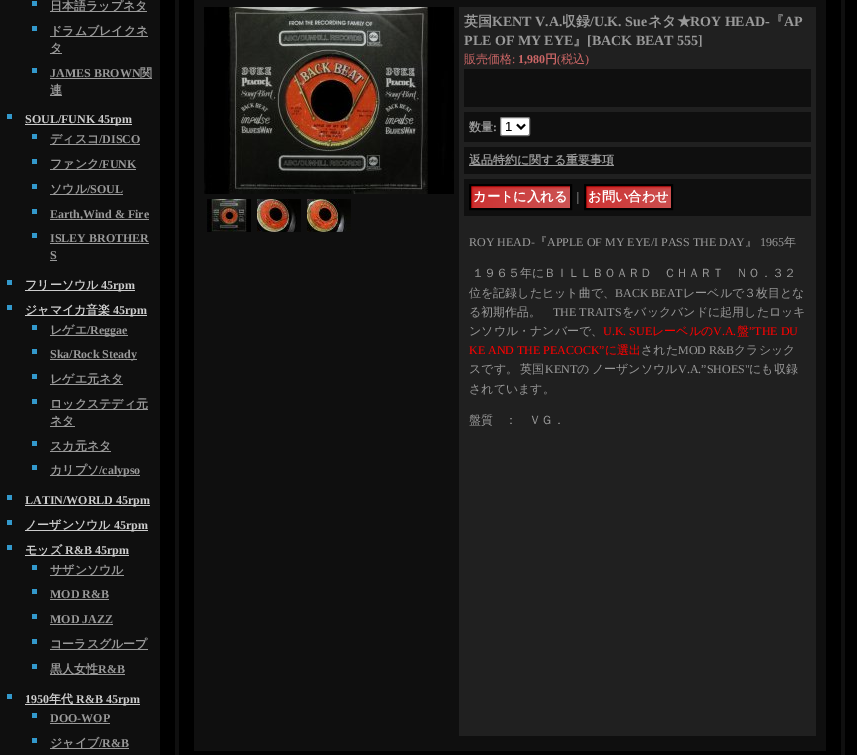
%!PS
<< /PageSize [857 755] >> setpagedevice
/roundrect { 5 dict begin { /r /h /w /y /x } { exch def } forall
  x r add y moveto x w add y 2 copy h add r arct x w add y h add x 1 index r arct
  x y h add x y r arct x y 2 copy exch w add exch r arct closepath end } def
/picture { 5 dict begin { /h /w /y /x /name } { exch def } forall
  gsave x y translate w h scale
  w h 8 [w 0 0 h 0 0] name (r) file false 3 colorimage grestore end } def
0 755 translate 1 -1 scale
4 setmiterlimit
0 setgray
0 0 857 755 rectfill
0.059 setgray
0 0 160 755 rectfill
0.2 0.6 0.8 setrgbcolor
32 1 5 5 rectfill
0.6 setgray
50 11 97 1 rectfill
/WenQuanYiZenHei-Bold [12 0 0 -12 0 0] selectfont
50 10 moveto (日本語ラップネタ) show
0.2 0.6 0.8 setrgbcolor
32 26 5 5 rectfill
0.6 setgray
50 36 98 1 rectfill
50 35 moveto (ドラムブレイクネ) show
50 53 12 1 rectfill
50 52 moveto (タ) show
0.2 0.6 0.8 setrgbcolor
32 68 5 5 rectfill
/LiberationSerif-Bold [12 0 0 -12 0 0] selectfont
0.6 setgray
50 77 moveto (JAMES BROWN) show
50 78 102 1 rectfill
/WenQuanYiZenHei-Bold [12 0 0 -12 0 0] selectfont
140 77 moveto (関) show
50 95 12 1 rectfill
50 94 moveto (連) show
0.2 0.6 0.8 setrgbcolor
7 114 5 5 rectfill
0.8 setgray
25 124 107 1 rectfill
/LiberationSerif-Bold [12 0 0 -12 0 0] selectfont
25 123 moveto (SOUL/FUNK 45rpm) show
0.2 0.6 0.8 setrgbcolor
32 134 5 5 rectfill
0.6 setgray
50 144 90 1 rectfill
/WenQuanYiZenHei-Bold [12 0 0 -12 0 0] selectfont
50 143 moveto (ディスコ) show
/LiberationSerif-Bold [12 0 0 -12 0 0] selectfont
99 143 moveto (/DISCO) show
0.2 0.6 0.8 setrgbcolor
32 159 5 5 rectfill
0.6 setgray
50 169 86 1 rectfill
/WenQuanYiZenHei-Bold [12 0 0 -12 0 0] selectfont
50 168 moveto (ファンク) show
/LiberationSerif-Bold [12 0 0 -12 0 0] selectfont
99 168 moveto (/FUNK) show
0.2 0.6 0.8 setrgbcolor
32 184 5 5 rectfill
0.6 setgray
50 194 73 1 rectfill
/WenQuanYiZenHei-Bold [12 0 0 -12 0 0] selectfont
50 193 moveto (ソウル) show
/LiberationSerif-Bold [12 0 0 -12 0 0] selectfont
87 193 moveto (/SOUL) show
0.2 0.6 0.8 setrgbcolor
32 209 5 5 rectfill
0.6 setgray
50 219 99 1 rectfill
50 218 moveto (Earth,Wind & Fire) show
0.2 0.6 0.8 setrgbcolor
32 233 5 5 rectfill
0.6 setgray
50 242 moveto (ISLEY BROTHER) show
50 243 99 1 rectfill
50 259 moveto (S) show
50 260 7 1 rectfill
0.2 0.6 0.8 setrgbcolor
7 280 5 5 rectfill
0.8 setgray
25 290 110 1 rectfill
/WenQuanYiZenHei-Bold [12 0 0 -12 0 0] selectfont
25 289 moveto (フリーソウル) show
/LiberationSerif-Bold [12 0 0 -12 0 0] selectfont
101 289 moveto (45rpm) show
0.2 0.6 0.8 setrgbcolor
7 305 5 5 rectfill
0.8 setgray
25 315 122 1 rectfill
/WenQuanYiZenHei-Bold [12 0 0 -12 0 0] selectfont
25 314 moveto (ジャマイカ音楽) show
/LiberationSerif-Bold [12 0 0 -12 0 0] selectfont
113 314 moveto (45rpm) show
0.2 0.6 0.8 setrgbcolor
32 325 5 5 rectfill
0.6 setgray
50 335 78 1 rectfill
/WenQuanYiZenHei-Bold [12 0 0 -12 0 0] selectfont
50 334 moveto (レゲエ) show
/LiberationSerif-Bold [12 0 0 -12 0 0] selectfont
87 334 moveto (/Reggae) show
0.2 0.6 0.8 setrgbcolor
32 349 5 5 rectfill
0.6 setgray
50 359 87 1 rectfill
50 358 moveto (Ska/Rock Steady) show
0.2 0.6 0.8 setrgbcolor
32 374 5 5 rectfill
0.6 setgray
50 384 73 1 rectfill
/WenQuanYiZenHei-Bold [12 0 0 -12 0 0] selectfont
50 383 moveto (レゲエ元ネタ) show
0.2 0.6 0.8 setrgbcolor
32 399 5 5 rectfill
0.6 setgray
50 409 98 1 rectfill
50 408 moveto (ロックステディ元) show
50 426 25 1 rectfill
50 425 moveto (ネタ) show
0.2 0.6 0.8 setrgbcolor
32 441 5 5 rectfill
0.6 setgray
50 451 61 1 rectfill
50 450 moveto (スカ元ネタ) show
0.2 0.6 0.8 setrgbcolor
32 465 5 5 rectfill
0.6 setgray
50 475 90 1 rectfill
50 474 moveto (カリプソ) show
/LiberationSerif-Bold [12 0 0 -12 0 0] selectfont
99 474 moveto (/calypso) show
0.2 0.6 0.8 setrgbcolor
7 495 5 5 rectfill
0.8 setgray
25 505 125 1 rectfill
25 504 moveto (LATIN/WORLD 45rpm) show
0.2 0.6 0.8 setrgbcolor
7 520 5 5 rectfill
0.8 setgray
25 530 123 1 rectfill
/WenQuanYiZenHei-Bold [12 0 0 -12 0 0] selectfont
25 529 moveto (ノーザンソウル) show
/LiberationSerif-Bold [12 0 0 -12 0 0] selectfont
114 529 moveto (45rpm) show
0.2 0.6 0.8 setrgbcolor
7 545 5 5 rectfill
0.8 setgray
25 555 104 1 rectfill
/WenQuanYiZenHei-Bold [12 0 0 -12 0 0] selectfont
25 554 moveto (モッズ) show
/LiberationSerif-Bold [12 0 0 -12 0 0] selectfont
65 554 moveto (R&B 45rpm) show
0.2 0.6 0.8 setrgbcolor
32 565 5 5 rectfill
0.6 setgray
50 575 74 1 rectfill
/WenQuanYiZenHei-Bold [12 0 0 -12 0 0] selectfont
50 574 moveto (サザンソウル) show
0.2 0.6 0.8 setrgbcolor
32 589 5 5 rectfill
/LiberationSerif-Bold [12 0 0 -12 0 0] selectfont
0.6 setgray
50 598 moveto (MOD R&B) show
50 599 59 1 rectfill
0.2 0.6 0.8 setrgbcolor
32 614 5 5 rectfill
0.6 setgray
50 623 moveto (MOD JAZZ) show
50 624 63 1 rectfill
0.2 0.6 0.8 setrgbcolor
32 639 5 5 rectfill
0.6 setgray
50 649 98 1 rectfill
/WenQuanYiZenHei-Bold [12 0 0 -12 0 0] selectfont
50 648 moveto (コーラスグループ) show
0.2 0.6 0.8 setrgbcolor
32 664 5 5 rectfill
0.6 setgray
50 674 75 1 rectfill
50 673 moveto (黒人女性) show
/LiberationSerif-Bold [12 0 0 -12 0 0] selectfont
98 673 moveto (R&B) show
0.2 0.6 0.8 setrgbcolor
7 694 5 5 rectfill
0.8 setgray
25 703 moveto (1950) show
25 704 115 1 rectfill
/WenQuanYiZenHei-Bold [12 0 0 -12 0 0] selectfont
49 703 moveto (年代) show
/LiberationSerif-Bold [12 0 0 -12 0 0] selectfont
76 703 moveto (R&B 45rpm) show
0.2 0.6 0.8 setrgbcolor
32 713 5 5 rectfill
0.6 setgray
50 722 moveto (DOO-WOP) show
50 723 60 1 rectfill
0.2 0.6 0.8 setrgbcolor
32 738 5 5 rectfill
0.6 setgray
50 748 79 1 rectfill
/WenQuanYiZenHei-Bold [12 0 0 -12 0 0] selectfont
50 747 moveto (ジャイブ) show
/LiberationSerif-Bold [12 0 0 -12 0 0] selectfont
99 747 moveto (/R&B) show
0.059 setgray
841 0 4 755 rectfill
175 0 4 755 rectfill
194 0 632 751 rectfill
(img1.rgb) 204 7 250 187 picture
(img2.rgb) 207 199 44 33 picture
(img3.rgb) 257 199 44 33 picture
(img4.rgb) 307 199 44 33 picture
0.125 setgray
459 7 357 729 rectfill
/WenQuanYiZenHei-Bold [14 0 0 -14 0 0] selectfont
0.6 setgray
464 26 moveto (英国) show
/LiberationSerif-Bold [14 0 0 -14 0 0] selectfont
492 26 moveto (KENT V.A.) show
/WenQuanYiZenHei-Bold [14 0 0 -14 0 0] selectfont
562 26 moveto (収録) show
/LiberationSerif-Bold [14 0 0 -14 0 0] selectfont
590 26 moveto (/U.K. Sue) show
/WenQuanYiZenHei-Bold [14 0 0 -14 0 0] selectfont
648 26 moveto (ネタ★) show
/LiberationSerif-Bold [14 0 0 -14 0 0] selectfont
690 26 moveto (ROY HEAD-) show
/WenQuanYiZenHei-Bold [14 0 0 -14 0 0] selectfont
770 26 moveto (『) show
/LiberationSerif-Bold [14 0 0 -14 0 0] selectfont
784 26 moveto (AP) show
464 45 moveto (PLE OF MY EYE) show
/WenQuanYiZenHei-Bold [14 0 0 -14 0 0] selectfont
573 45 moveto (』) show
/LiberationSerif-Bold [14 0 0 -14 0 0] selectfont
587 45 moveto ([BACK BEAT 555]) show
/WenQuanYiZenHei-Medium [12 0 0 -12 0 0] selectfont
0.8 0.4 0.4 setrgbcolor
464 63 moveto (販売価格) show
/LiberationSerif-Regular [12 0 0 -12 0 0] selectfont
512 63 moveto (:) show
/LiberationSerif-Bold [12 0 0 -12 0 0] selectfont
518 63 moveto (1,980) show
/WenQuanYiZenHei-Bold [12 0 0 -12 0 0] selectfont
545 63 moveto (円) show
/LiberationSerif-Regular [12 0 0 -12 0 0] selectfont
557 63 moveto (\() show
/WenQuanYiZenHei-Medium [12 0 0 -12 0 0] selectfont
561 63 moveto (税込) show
/LiberationSerif-Regular [12 0 0 -12 0 0] selectfont
585 63 moveto (\)) show
0.059 setgray
464 69 347 38 rectfill
464 112 347 30 rectfill
/WenQuanYiZenHei-Bold [12 0 0 -12 0 0] selectfont
0.6 setgray
469 131 moveto (数量) show
/LiberationSerif-Bold [12 0 0 -12 0 0] selectfont
493 131 moveto (:) show
1 setgray
500.5 117.5 29 18 1.5 roundrect gsave fill grestore
0.463 setgray
stroke
0 setgray
2 setlinewidth
newpath 517 124.5 moveto 521 128.5 lineto 525 124.5 lineto stroke
/LiberationSans-Regular [13.25 0 0 -13.25 0 0] selectfont
505 131 moveto (1) show
0.059 setgray
464 147 347 27 rectfill
0.6 setgray
469 165 145 1 rectfill
/WenQuanYiZenHei-Bold [12 0 0 -12 0 0] selectfont
469 164 moveto (返品特約に関する重要事項) show
0.059 setgray
464 179 347 37 rectfill
(img5.rgb) 471 186 99 22 picture
0 setgray
470 185 101 24 rectstroke
/WenQuanYiZenHei-Bold [13.25 0 0 -13.25 0 0] selectfont
1 setgray
473 201 moveto (カートに入れる) show
/WenQuanYiZenHei-Medium [12 0 0 -12 0 0] selectfont
0.6 setgray
572 201 moveto (｜) show
(img6.rgb) 586 186 85 22 picture
0 setgray
585 185 87 24 rectstroke
/WenQuanYiZenHei-Bold [13.25 0 0 -13.25 0 0] selectfont
1 setgray
588 201 moveto (お問い合わせ) show
/LiberationSerif-Regular [12 0 0 -12 0 0] selectfont
0.6 setgray
469 246 moveto (ROY HEAD-) show
/WenQuanYiZenHei-Medium [12 0 0 -12 0 0] selectfont
535 246 moveto (『) show
/LiberationSerif-Regular [12 0 0 -12 0 0] selectfont
547 246 moveto (APPLE OF MY EYE/I PASS THE DAY) show
/WenQuanYiZenHei-Medium [12 0 0 -12 0 0] selectfont
745 246 moveto (』) show
/LiberationSerif-Regular [12 0 0 -12 0 0] selectfont
760 246 moveto (1965) show
/WenQuanYiZenHei-Medium [12 0 0 -12 0 0] selectfont
784 246 moveto (年) show
472 277 moveto (１９６５年にＢＩＬＬＢＯＡＲＤ　ＣＨＡＲＴ　ＮＯ．３２) show
469 297 moveto (位を記録したヒット曲で、) show
/LiberationSerif-Regular [12 0 0 -12 0 0] selectfont
615 297 moveto (BACK BEAT) show
/WenQuanYiZenHei-Medium [12 0 0 -12 0 0] selectfont
683 297 moveto (レーベルで３枚目とな) show
469 316 moveto (る初期作品。) show
/LiberationSerif-Regular [12 0 0 -12 0 0] selectfont
553 316 moveto (THE TRAITS) show
/WenQuanYiZenHei-Medium [12 0 0 -12 0 0] selectfont
622 316 moveto (をバックバンドに起用したロッキ) show
469 335 moveto (ンソウル・ナンバーで、) show
/LiberationSerif-Regular [12 0 0 -12 0 0] selectfont
1 0 0 setrgbcolor
603 335 moveto (U.K. SUE) show
/WenQuanYiZenHei-Medium [12 0 0 -12 0 0] selectfont
652 335 moveto (レーベルの) show
/LiberationSerif-Regular [12 0 0 -12 0 0] selectfont
713 335 moveto (V.A.) show
/WenQuanYiZenHei-Medium [12 0 0 -12 0 0] selectfont
737 335 moveto (盤) show
/LiberationSerif-Regular [12 0 0 -12 0 0] selectfont
749 335 moveto (”THE DU) show
469 354 moveto (KE AND THE PEACOCK”) show
/WenQuanYiZenHei-Medium [12 0 0 -12 0 0] selectfont
605 354 moveto (に選出) show
0.6 setgray
641 354 moveto (された) show
/LiberationSerif-Regular [12 0 0 -12 0 0] selectfont
678 354 moveto (MOD R&B) show
/WenQuanYiZenHei-Medium [12 0 0 -12 0 0] selectfont
734 354 moveto (クラシック) show
469 373 moveto -1 0 32 (スです。 英国) widthshow
/LiberationSerif-Regular [12 0 0 -12 0 0] selectfont
545 373 moveto (KENT) show
/WenQuanYiZenHei-Medium [12 0 0 -12 0 0] selectfont
577 373 moveto -1 0 32 (の ノーザンソウル) widthshow
/LiberationSerif-Regular [12 0 0 -12 0 0] selectfont
678 373 moveto (V.A.”SHOES") show
/WenQuanYiZenHei-Medium [12 0 0 -12 0 0] selectfont
749 373 moveto (にも収録) show
469 393 moveto (されています。) show
469 424 moveto (盤質　：　ＶＧ．) show
showpage
